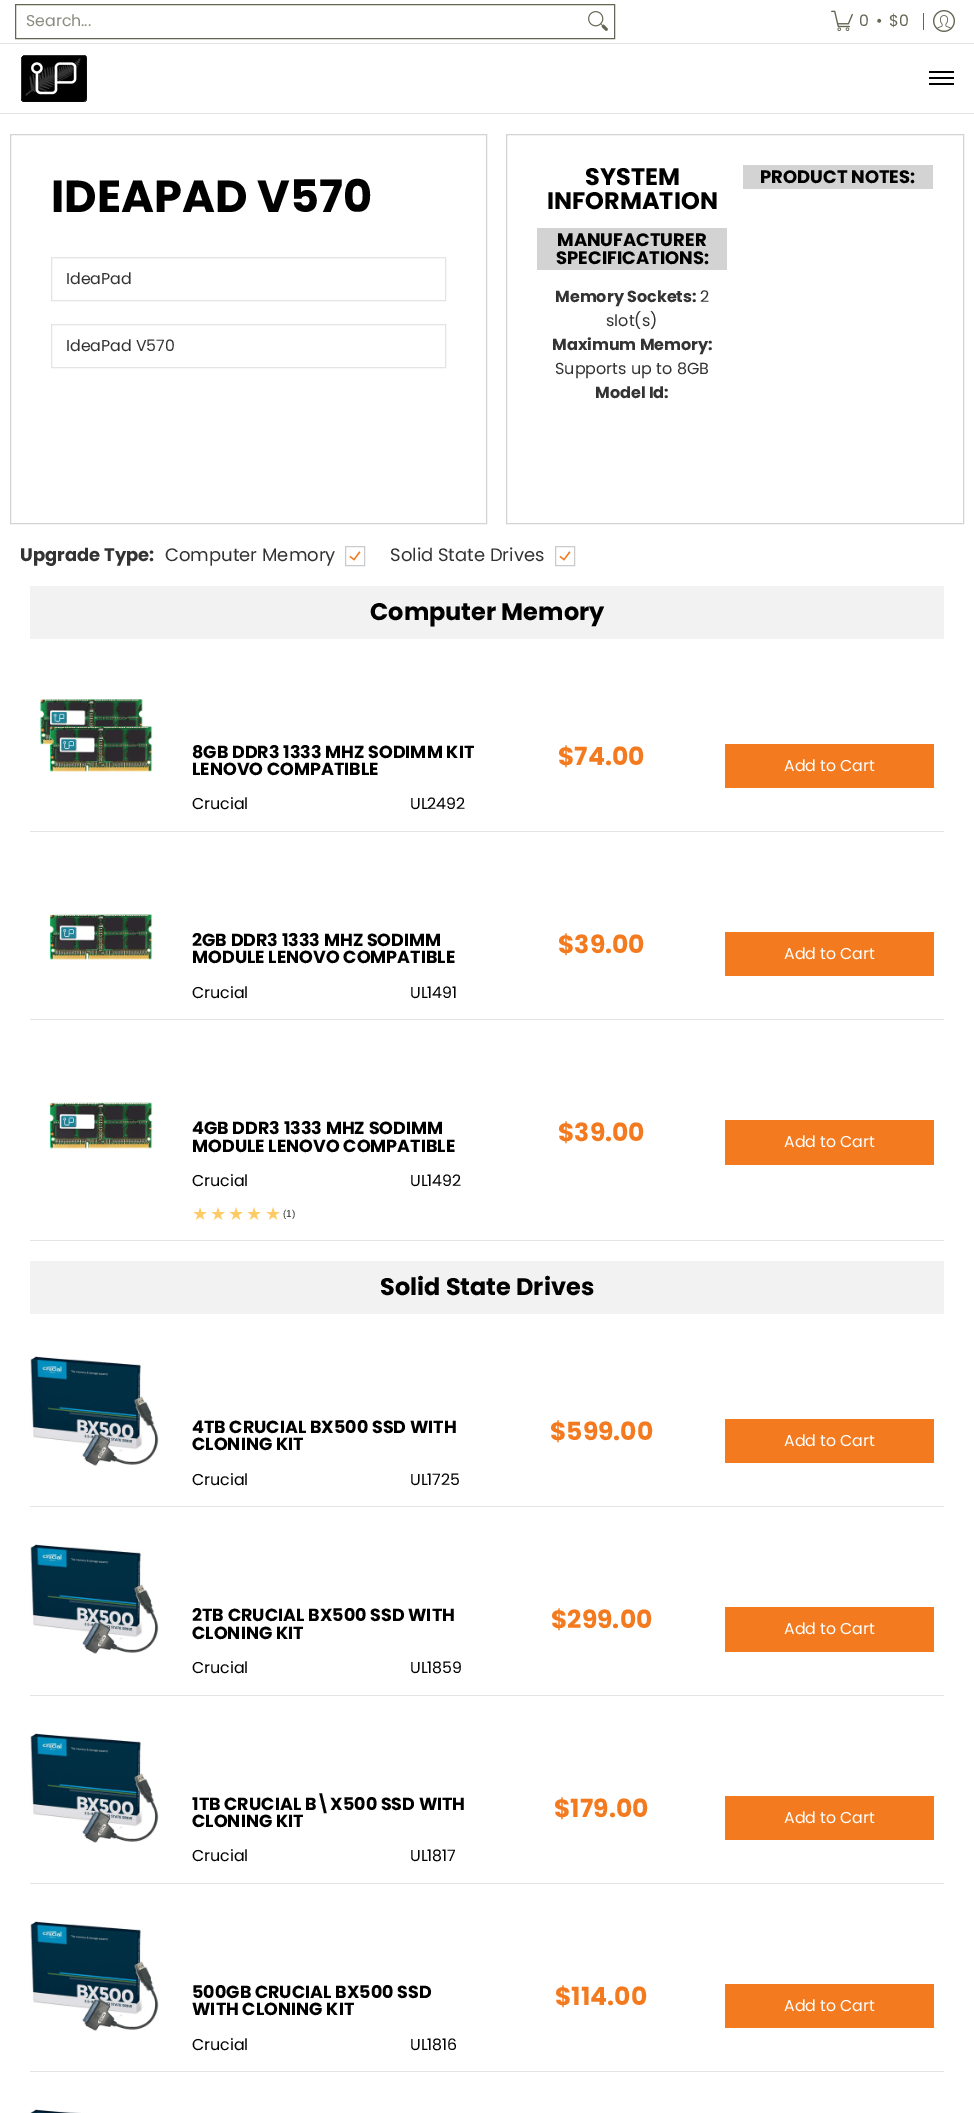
%!PS
<< /PageSize [974 2113] >> setpagedevice
/picture { 5 dict begin { /h /w /y /x /name } { exch def } forall
  gsave x y translate w h scale
  w h 8 [w 0 0 h 0 0] name (r) file false 3 colorimage grestore end } def
0 2113 translate 1 -1 scale
4 setmiterlimit
1 setgray
0 0 974 2113 rectfill
0.894 setgray
0 43 974 1 rectfill
0.4 0.4 0.333 setrgbcolor
15.5 4.5 599 34 rectstroke
/Poppins-Regular [15.75 0 0 -15.75 0 0] selectfont
0.549 0.549 0.502 setrgbcolor
26 26 moveto (Search...) show
(img1.rgb) 588 11 20 20 picture
(img2.rgb) 831 10 22 22 picture
0.4 0.4 0.333 setrgbcolor
859 26 moveto (0) show
876 26 moveto (•) show
889 26 moveto ($0) show
923 13 1 17 rectfill
(img3.rgb) 933 10 22 22 picture
0.894 setgray
0 113 974 1 rectfill
(img4.rgb) 21 55 66 47 picture
0 setgray
929 71 25 2 rectfill
929 83 25 2 rectfill
929 77 25 2 rectfill
0.827 setgray
10.5 134.5 476 389 rectstroke
/Poppins-Bold [44.75 0 0 -44.75 0 0] selectfont
0 setgray
51 212 moveto (IDEAPAD V570) show
0.894 setgray
51.5 257.5 394 43 rectstroke
/Poppins-Regular [15.75 0 0 -15.75 0 0] selectfont
0.2 setgray
66 284 moveto (IdeaPad) show
0.894 setgray
51.5 324.5 394 43 rectstroke
0.2 setgray
66 351 moveto (IdeaPad V570) show
0.827 setgray
506.5 134.5 457 389 rectstroke
/Poppins-Bold [24 0 0 -24 0 0] selectfont
0 setgray
585 185 moveto (SYSTEM) show
547 209 moveto (INFORMATION) show
0.827 setgray
537 228 190 42 rectfill
/Poppins-Bold [18 0 0 -18 0 0] selectfont
0 setgray
557 246 moveto (MANUFACTURER) show
556 264 moveto (SPECIFICATIONS:) show
/Poppins-Bold [16 0 0 -16 0 0] selectfont
0.2 setgray
555 302 moveto (Memory Sockets:) show
/Poppins-Regular [16 0 0 -16 0 0] selectfont
700 302 moveto (2) show
606 326 moveto (slot\(s\)) show
/Poppins-Bold [16 0 0 -16 0 0] selectfont
552 350 moveto (Maximum Memory:) show
/Poppins-Regular [16 0 0 -16 0 0] selectfont
555 374 moveto (Supports up to 8GB) show
/Poppins-Bold [16 0 0 -16 0 0] selectfont
595 398 moveto (Model Id:) show
0.827 setgray
743 165 190 24 rectfill
/Poppins-Bold [18 0 0 -18 0 0] selectfont
0 setgray
760 183 moveto (PRODUCT NOTES:) show
0.2 setgray
20 561 moveto (Upgrade Type:) show
/Poppins-Regular [18 0 0 -18 0 0] selectfont
165 561 moveto (Computer Memory) show
0.796 setgray
345.5 546.5 19 19 rectstroke
(img5.rgb) 349 551 12 10 picture
0.2 setgray
390 561 moveto (Solid State Drives) show
0.796 setgray
555.5 546.5 19 19 rectstroke
(img5.rgb) 559 551 12 10 picture
0.949 setgray
30 586 914 53 rectfill
/Poppins-Bold [24 0 0 -24 0 0] selectfont
0 setgray
370 620 moveto (Computer Memory) show
0.894 setgray
30 831 914 1 rectfill
(img6.rgb) 40 699 113 73 picture
/Poppins-Bold [17.5 0 0 -17.5 0 0] selectfont
0 setgray
192 758 moveto (8GB DDR3 1333 MHZ SODIMM KIT) show
192 775 moveto (LENOVO COMPATIBLE) show
/Poppins-Regular [15.75 0 0 -15.75 0 0] selectfont
192 809 moveto (Crucial) show
410 809 moveto (UL2492) show
/Poppins-Bold [25 0 0 -25 0 0] selectfont
0.953 0.478 0.122 setrgbcolor
558 765 moveto ($74.00) show
725 744 209 44 rectfill
/Poppins-Regular [15.75 0 0 -15.75 0 0] selectfont
1 setgray
784 771 moveto (Add to Cart) show
0.894 setgray
30 1019 914 1 rectfill
(img7.rgb) 49 914 104 46 picture
/Poppins-Bold [17.5 0 0 -17.5 0 0] selectfont
0 setgray
192 946 moveto (2GB DDR3 1333 MHZ SODIMM) show
192 963 moveto (MODULE LENOVO COMPATIBLE) show
/Poppins-Regular [15.75 0 0 -15.75 0 0] selectfont
192 998 moveto (Crucial) show
410 998 moveto (UL1491) show
/Poppins-Bold [25 0 0 -25 0 0] selectfont
0.953 0.478 0.122 setrgbcolor
558 953 moveto ($39.00) show
725 932 209 44 rectfill
/Poppins-Regular [15.75 0 0 -15.75 0 0] selectfont
1 setgray
784 959 moveto (Add to Cart) show
0.894 setgray
30 1240 914 1 rectfill
(img8.rgb) 49 1102 104 47 picture
/Poppins-Bold [17.5 0 0 -17.5 0 0] selectfont
0 setgray
192 1134 moveto (4GB DDR3 1333 MHZ SODIMM) show
192 1152 moveto (MODULE LENOVO COMPATIBLE) show
/Poppins-Regular [15.75 0 0 -15.75 0 0] selectfont
192 1186 moveto (Crucial) show
410 1186 moveto (UL1492) show
/DejaVuSans-Regular [18 0 0 -18 0 0] selectfont
1 0.796 0.404 setrgbcolor
192 1220 moveto 2 0 (★★★★★) ashow
/LiberationSans-Regular [10 0 0 -10 0 0] selectfont
0.2 setgray
283 1217 moveto (\(1\)) show
/Poppins-Bold [25 0 0 -25 0 0] selectfont
0.953 0.478 0.122 setrgbcolor
558 1141 moveto ($39.00) show
725 1120 209 45 rectfill
/Poppins-Regular [15.75 0 0 -15.75 0 0] selectfont
1 setgray
784 1147 moveto (Add to Cart) show
0.949 setgray
30 1261 914 53 rectfill
/Poppins-Bold [24 0 0 -24 0 0] selectfont
0 setgray
380 1295 moveto (Solid State Drives) show
0.894 setgray
30 1506 914 1 rectfill
(img9.rgb) 30 1356 129 110 picture
/Poppins-Bold [17.5 0 0 -17.5 0 0] selectfont
0 setgray
192 1433 moveto (4TB CRUCIAL BX500 SSD WITH) show
192 1450 moveto (CLONING KIT) show
/Poppins-Regular [15.75 0 0 -15.75 0 0] selectfont
192 1485 moveto (Crucial) show
410 1485 moveto (UL1725) show
/Poppins-Bold [25 0 0 -25 0 0] selectfont
0.953 0.478 0.122 setrgbcolor
550 1440 moveto ($599.00) show
725 1419 209 44 rectfill
/Poppins-Regular [15.75 0 0 -15.75 0 0] selectfont
1 setgray
784 1446 moveto (Add to Cart) show
0.894 setgray
30 1695 914 1 rectfill
(img9.rgb) 30 1544 129 110 picture
/Poppins-Bold [17.5 0 0 -17.5 0 0] selectfont
0 setgray
192 1621 moveto (2TB CRUCIAL BX500 SSD WITH) show
192 1639 moveto (CLONING KIT) show
/Poppins-Regular [15.75 0 0 -15.75 0 0] selectfont
192 1673 moveto (Crucial) show
410 1673 moveto (UL1859) show
/Poppins-Bold [25 0 0 -25 0 0] selectfont
0.953 0.478 0.122 setrgbcolor
551 1628 moveto ($299.00) show
725 1607 209 45 rectfill
/Poppins-Regular [15.75 0 0 -15.75 0 0] selectfont
1 setgray
784 1634 moveto (Add to Cart) show
0.894 setgray
30 1883 914 1 rectfill
(img9.rgb) 30 1733 129 110 picture
/Poppins-Bold [17.5 0 0 -17.5 0 0] selectfont
0 setgray
192 1810 moveto (1TB CRUCIAL B\\X500 SSD WITH) show
192 1827 moveto (CLONING KIT) show
/Poppins-Regular [15.75 0 0 -15.75 0 0] selectfont
192 1861 moveto (Crucial) show
410 1861 moveto (UL1817) show
/Poppins-Bold [25 0 0 -25 0 0] selectfont
0.953 0.478 0.122 setrgbcolor
554 1817 moveto ($179.00) show
725 1796 209 44 rectfill
/Poppins-Regular [15.75 0 0 -15.75 0 0] selectfont
1 setgray
784 1823 moveto (Add to Cart) show
0.894 setgray
30 2071 914 1 rectfill
(img9.rgb) 30 1921 129 110 picture
/Poppins-Bold [17.5 0 0 -17.5 0 0] selectfont
0 setgray
192 1998 moveto (500GB CRUCIAL BX500 SSD) show
192 2015 moveto (WITH CLONING KIT) show
/Poppins-Regular [15.75 0 0 -15.75 0 0] selectfont
192 2050 moveto (Crucial) show
410 2050 moveto (UL1816) show
/Poppins-Bold [25 0 0 -25 0 0] selectfont
0.953 0.478 0.122 setrgbcolor
555 2005 moveto ($114.00) show
725 1984 209 44 rectfill
/Poppins-Regular [15.75 0 0 -15.75 0 0] selectfont
1 setgray
784 2011 moveto (Add to Cart) show
(img10.rgb) 30 2109 51 4 picture
showpage
